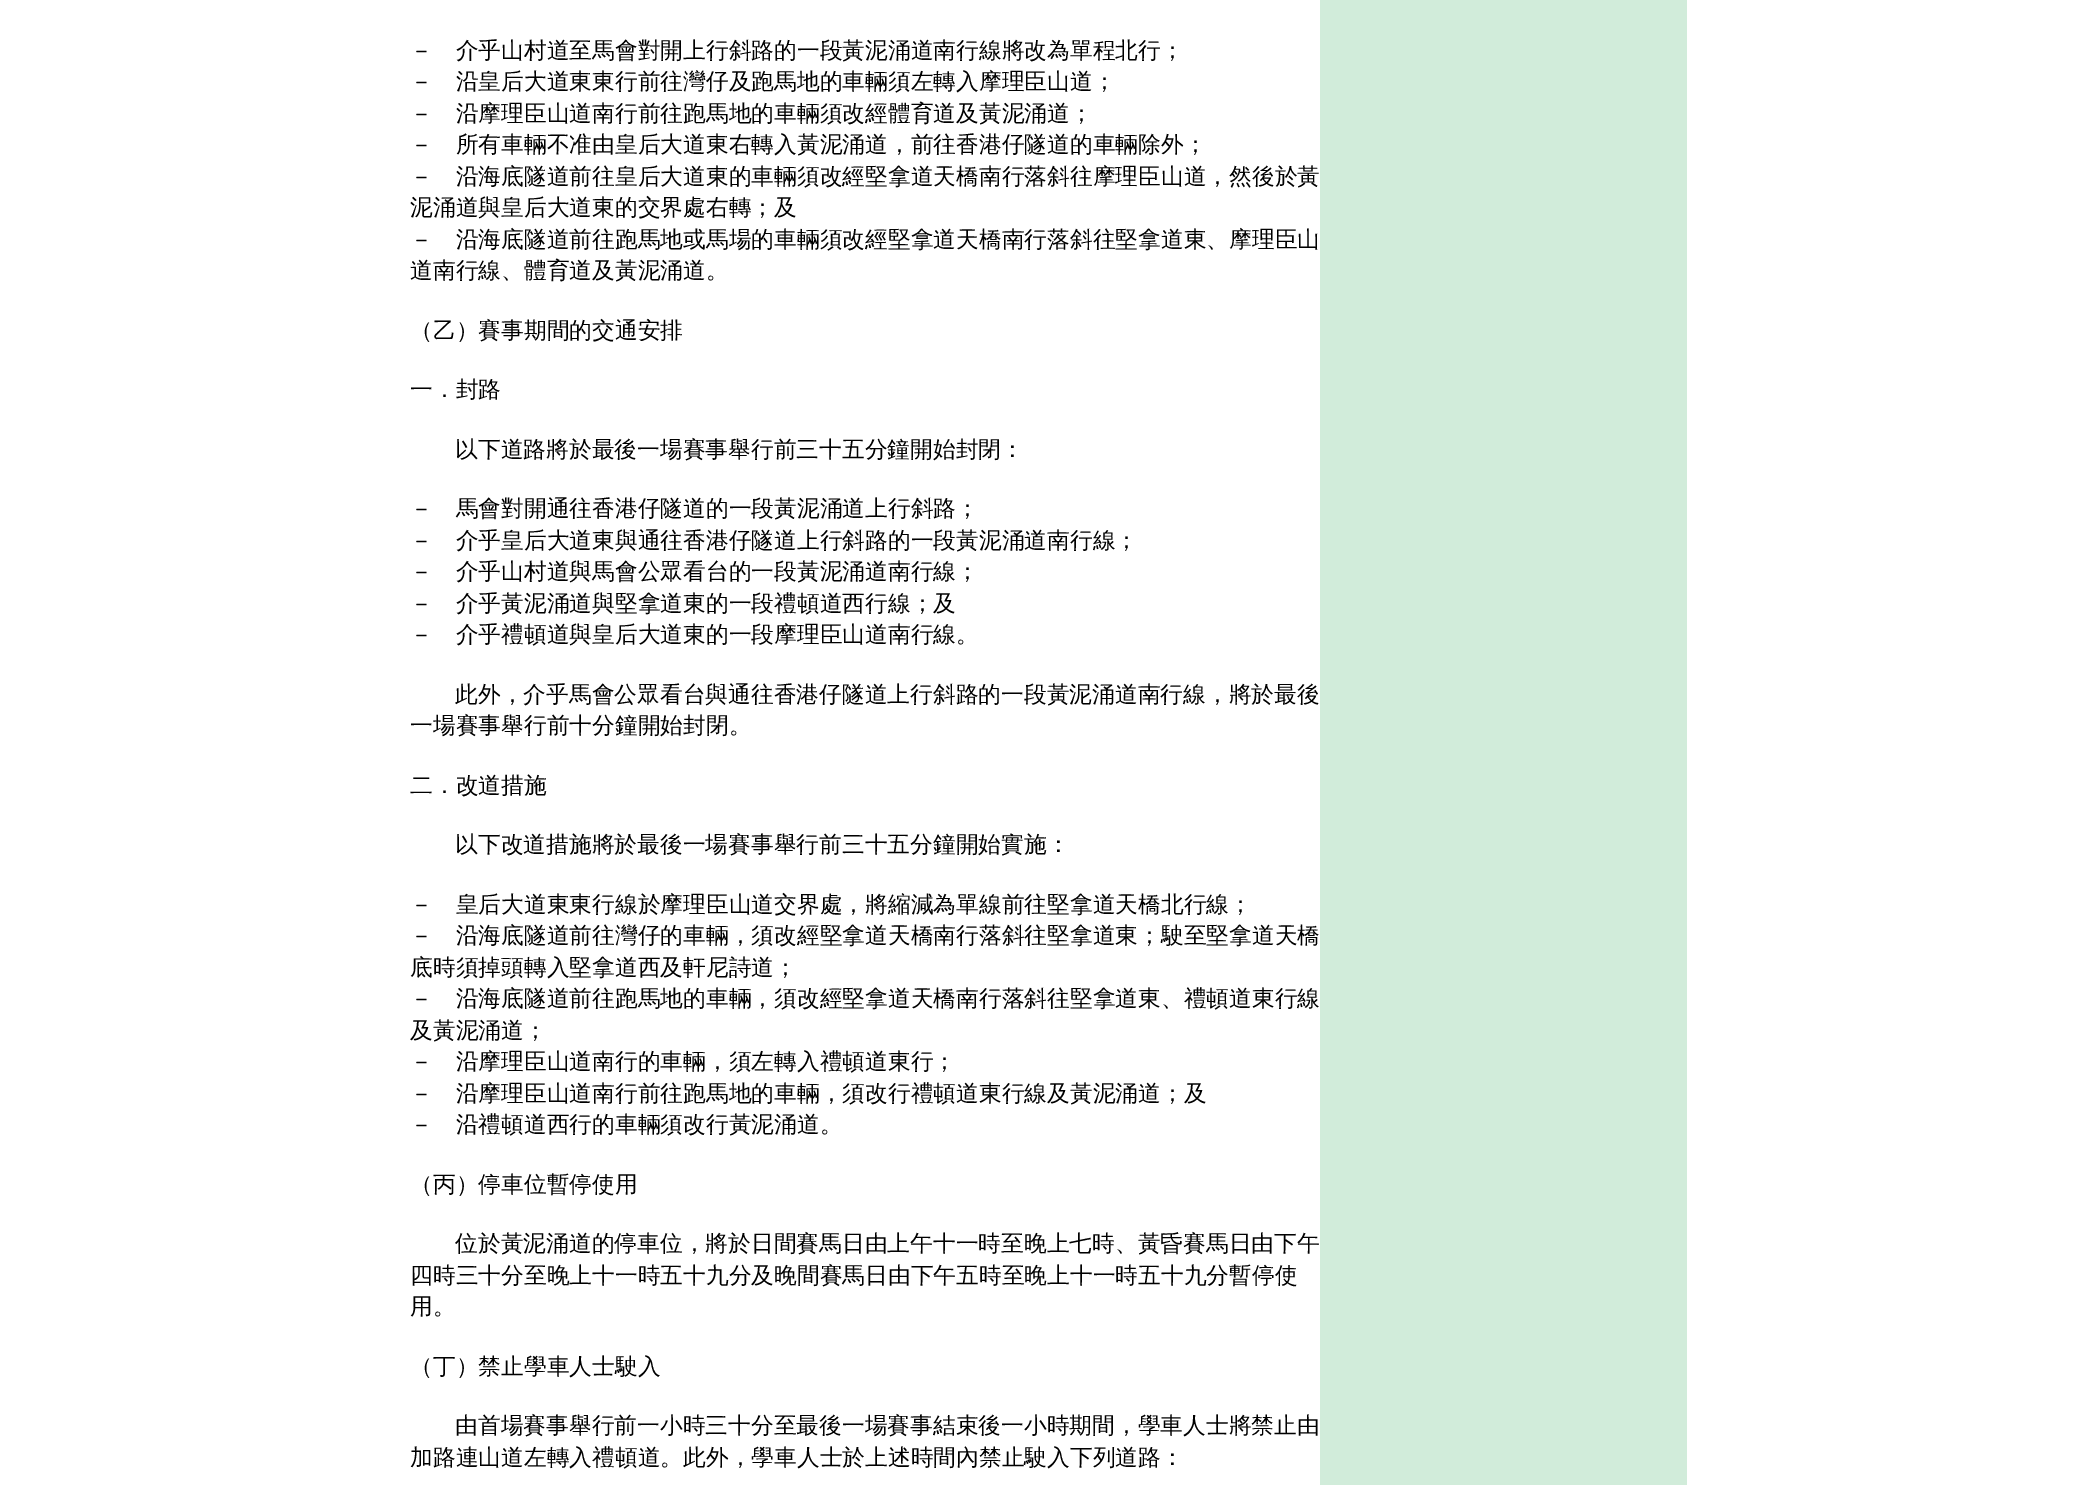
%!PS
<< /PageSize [2095 1485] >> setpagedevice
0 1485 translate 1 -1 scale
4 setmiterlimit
1 setgray
0 0 2095 1485 rectfill
0.82 0.925 0.855 setrgbcolor
1320 0 367 1485 rectfill
/WenQuanYiZenHei-Medium [22.75 0 0 -22.75 0 0] selectfont
0 setgray
410 58 moveto (－　介乎山村道至馬會對開上行斜路的一段黃泥涌道南行線將改為單程北行；) show
410 89 moveto (－　沿皇后大道東東行前往灣仔及跑馬地的車輛須左轉入摩理臣山道；) show
410 121 moveto (－　沿摩理臣山道南行前往跑馬地的車輛須改經體育道及黃泥涌道；) show
410 152 moveto (－　所有車輛不准由皇后大道東右轉入黃泥涌道，前往香港仔隧道的車輛除外；) show
410 184 moveto (－　沿海底隧道前往皇后大道東的車輛須改經堅拿道天橋南行落斜往摩理臣山道，然後於黃) show
410 215 moveto (泥涌道與皇后大道東的交界處右轉；及) show
410 247 moveto (－　沿海底隧道前往跑馬地或馬場的車輛須改經堅拿道天橋南行落斜往堅拿道東、摩理臣山) show
410 278 moveto (道南行線、體育道及黃泥涌道。) show
410 338 moveto (（乙）賽事期間的交通安排) show
410 397 moveto (一．封路) show
455 457 moveto (以下道路將於最後一場賽事舉行前三十五分鐘開始封閉：) show
410 516 moveto (－　馬會對開通往香港仔隧道的一段黃泥涌道上行斜路；) show
410 548 moveto (－　介乎皇后大道東與通往香港仔隧道上行斜路的一段黃泥涌道南行線；) show
410 579 moveto (－　介乎山村道與馬會公眾看台的一段黃泥涌道南行線；) show
410 611 moveto (－　介乎黃泥涌道與堅拿道東的一段禮頓道西行線；及) show
410 642 moveto (－　介乎禮頓道與皇后大道東的一段摩理臣山道南行線。) show
455 702 moveto (此外，介乎馬會公眾看台與通往香港仔隧道上行斜路的一段黃泥涌道南行線，將於最後) show
410 733 moveto (一場賽事舉行前十分鐘開始封閉。) show
410 793 moveto (二．改道措施) show
455 852 moveto (以下改道措施將於最後一場賽事舉行前三十五分鐘開始實施：) show
410 912 moveto (－　皇后大道東東行線於摩理臣山道交界處，將縮減為單線前往堅拿道天橋北行線；) show
410 943 moveto (－　沿海底隧道前往灣仔的車輛，須改經堅拿道天橋南行落斜往堅拿道東；駛至堅拿道天橋) show
410 975 moveto (底時須掉頭轉入堅拿道西及軒尼詩道；) show
410 1006 moveto (－　沿海底隧道前往跑馬地的車輛，須改經堅拿道天橋南行落斜往堅拿道東、禮頓道東行線) show
410 1038 moveto (及黃泥涌道；) show
410 1069 moveto (－　沿摩理臣山道南行的車輛，須左轉入禮頓道東行；) show
410 1101 moveto (－　沿摩理臣山道南行前往跑馬地的車輛，須改行禮頓道東行線及黃泥涌道；及) show
410 1132 moveto (－　沿禮頓道西行的車輛須改行黃泥涌道。) show
410 1192 moveto (（丙）停車位暫停使用) show
455 1251 moveto (位於黃泥涌道的停車位，將於日間賽馬日由上午十一時至晚上七時、黃昏賽馬日由下午) show
410 1283 moveto (四時三十分至晚上十一時五十九分及晚間賽馬日由下午五時至晚上十一時五十九分暫停使) show
410 1314 moveto (用。) show
410 1374 moveto (（丁）禁止學車人士駛入) show
455 1433 moveto (由首場賽事舉行前一小時三十分至最後一場賽事結束後一小時期間，學車人士將禁止由) show
410 1465 moveto (加路連山道左轉入禮頓道。此外，學車人士於上述時間內禁止駛入下列道路：) show
showpage
